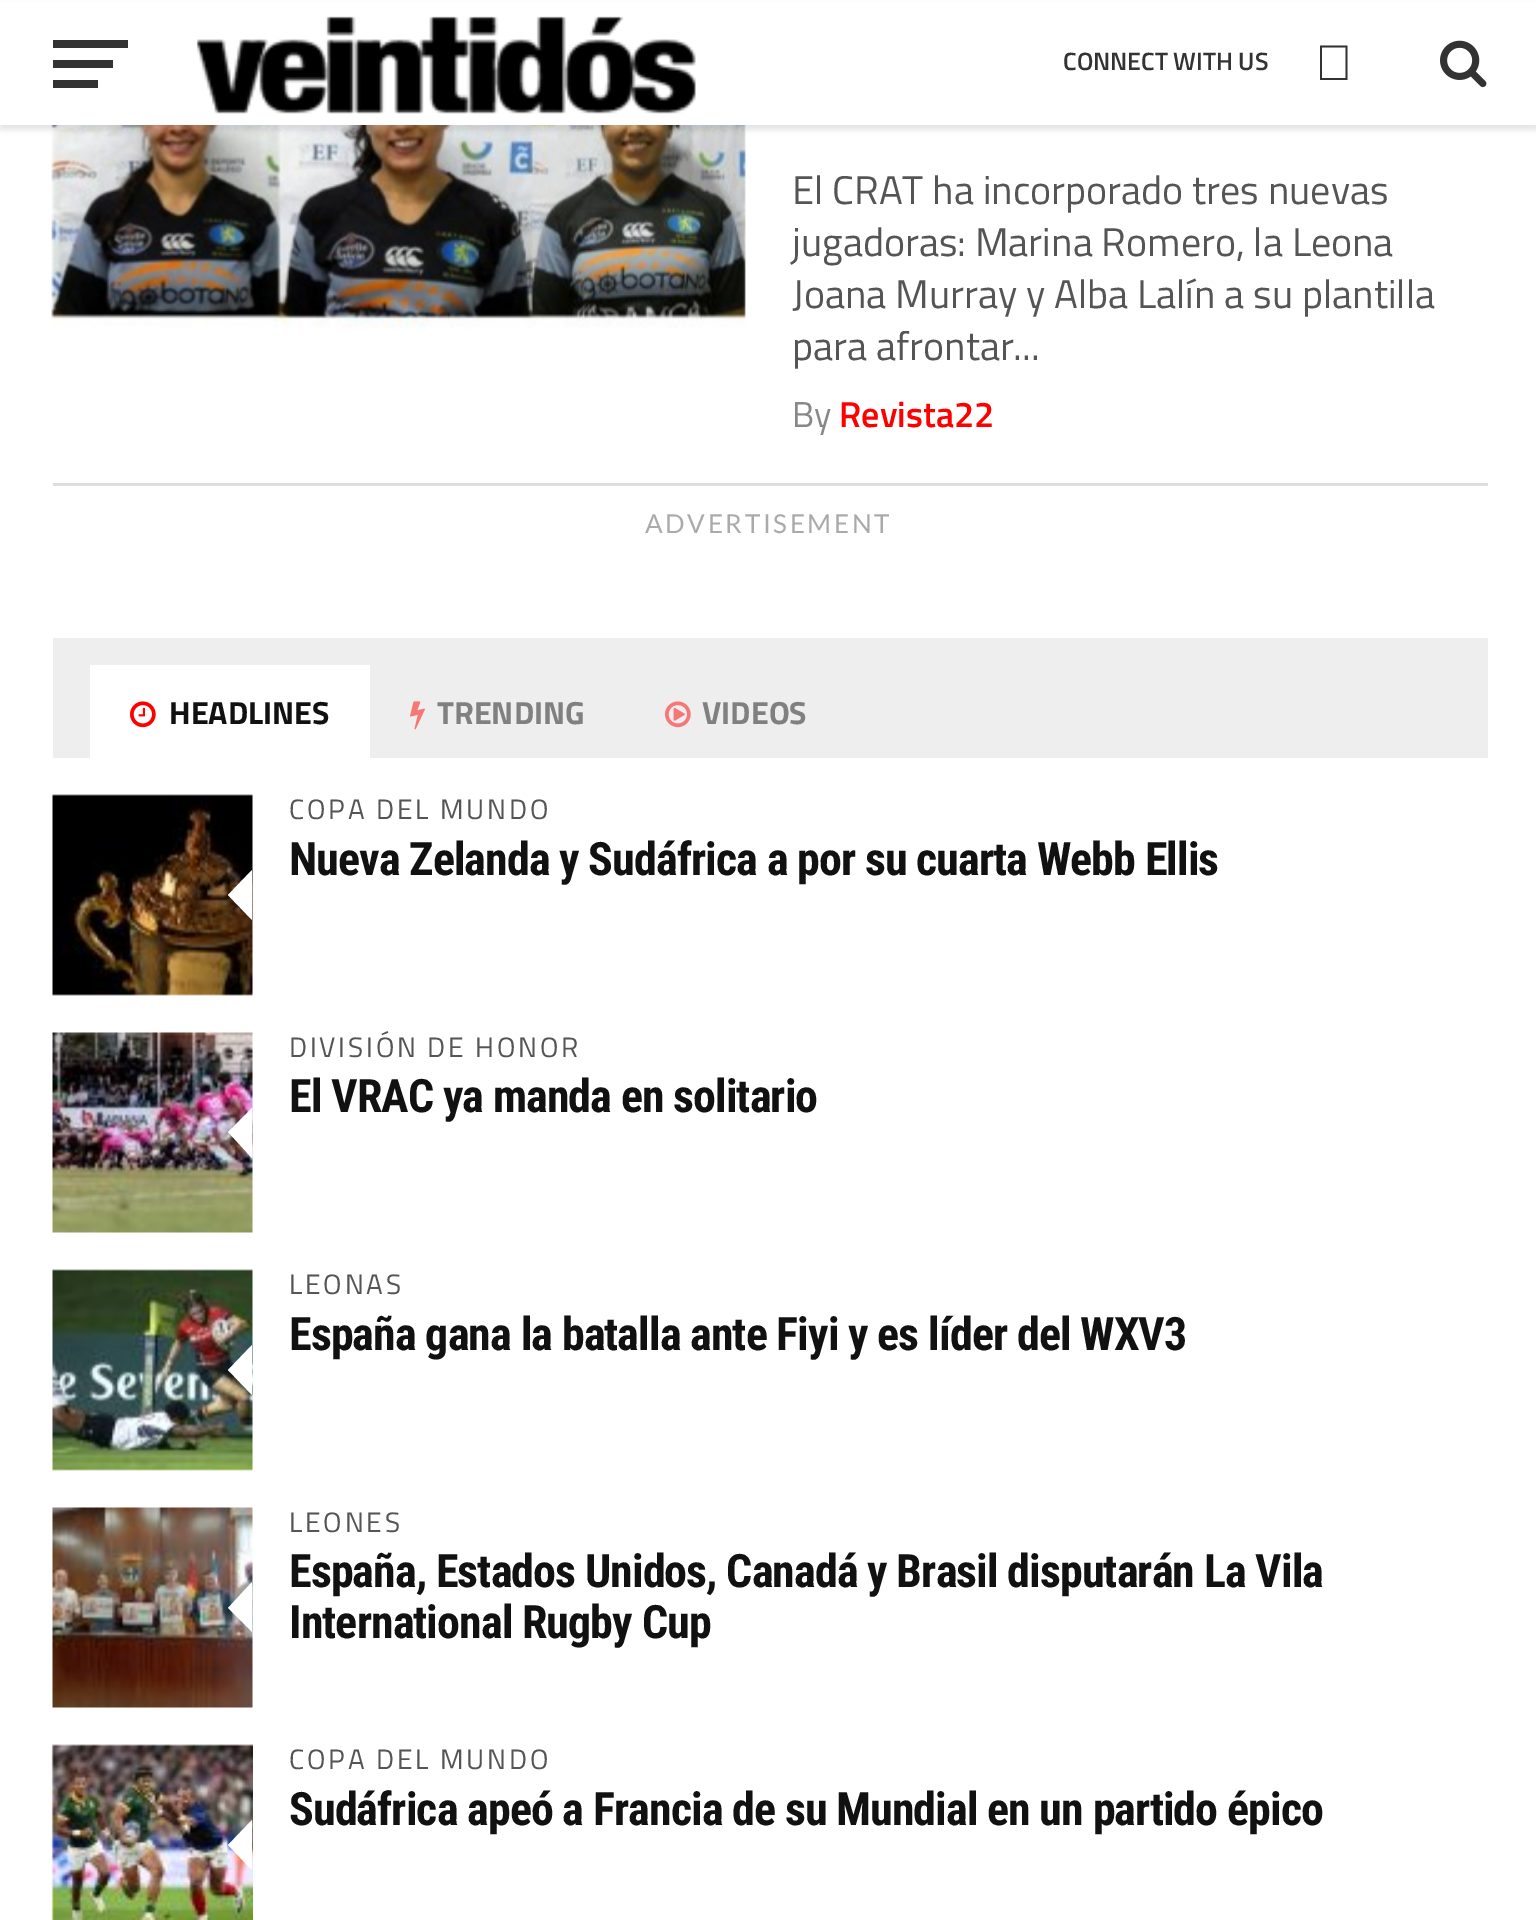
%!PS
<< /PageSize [1536 1920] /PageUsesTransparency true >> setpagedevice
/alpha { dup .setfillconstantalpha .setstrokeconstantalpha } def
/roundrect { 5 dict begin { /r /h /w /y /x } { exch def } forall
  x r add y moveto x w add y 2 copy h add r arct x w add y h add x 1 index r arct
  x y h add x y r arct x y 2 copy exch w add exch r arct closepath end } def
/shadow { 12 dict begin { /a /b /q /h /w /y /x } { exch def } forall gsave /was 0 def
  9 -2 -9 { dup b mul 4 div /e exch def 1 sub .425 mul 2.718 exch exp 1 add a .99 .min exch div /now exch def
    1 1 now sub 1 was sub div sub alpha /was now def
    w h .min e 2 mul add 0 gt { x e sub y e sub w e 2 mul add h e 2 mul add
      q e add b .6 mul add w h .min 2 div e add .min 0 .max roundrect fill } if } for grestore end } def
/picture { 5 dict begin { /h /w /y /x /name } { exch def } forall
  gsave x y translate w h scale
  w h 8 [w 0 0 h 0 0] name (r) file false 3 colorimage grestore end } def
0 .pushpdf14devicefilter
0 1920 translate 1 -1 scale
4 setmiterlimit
1 setgray
0 0 1536 1920 rectfill
(img3.rgb) 51 125 695 204 picture
0 setgray
0 5 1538 125 0 2.5 0.1 shadow
1 setgray
0 2 1536 123 rectfill
0.2 setgray
53 40 75 8 rectfill
53 60 60 8 rectfill
53 80 45 8 rectfill
(img1.rgb) 196 16 500 98 picture
/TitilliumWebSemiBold-SemiBold [25 0 0 -25 0 0] selectfont
1063 70 moveto (CONNECT WITH US) show
newpath 1320 45.5 moveto 1347.5 45.5 lineto 1347.5 80 lineto 1320 80 lineto closepath 1322 47.5 moveto 1322 78 lineto 1345.5 78 lineto 1345.5 47.5 lineto closepath fill
(img2.rgb) 1440 40 47 48 picture
/TitilliumWeb-Regular [40 0 0 -40 0 0] selectfont
0.333 setgray
792 204 moveto (El CRAT ha incorporado tres nuevas) show
792 256 moveto (jugadoras: Marina Romero, la Leona) show
792 308 moveto (Joana Murray y Alba Lalín a su plantilla) show
792 360 moveto (para afrontar...) show
/TitilliumWeb-Regular [36 0 0 -36 0 0] selectfont
0.533 setgray
792 427 moveto (By) show
/TitilliumWebSemiBold-SemiBold [36 0 0 -36 0 0] selectfont
1 0 0 setrgbcolor
839 427 moveto (Revista22) show
0.867 setgray
53 483 1435 3 rectfill
/Lato-Regular [26 0 0 -26 0 0] selectfont
0.667 setgray
645 533 moveto 2.6 0 (ADVERTISEMENT) ashow
0.933 setgray
53 638 1435 120 rectfill
1 setgray
90 665 280 93 rectfill
(img4.rgb) 130 701 26 27 picture
/TitilliumWeb-Bold [32 0 0 -32 0 0] selectfont
0.067 setgray
169 724 moveto (HEADLINES) show
(img5.rgb) 410 701 15 29 picture
0.502 setgray
437 724 moveto (TRENDING) show
(img6.rgb) 665 701 26 27 picture
702 724 moveto (VIDEOS) show
(img7.rgb) 52 794 201 202 picture
1 setgray
newpath 252 870 moveto 252 920 lineto 228 895 lineto closepath fill
/TitilliumWeb-Regular [28 0 0 -28 0 0] selectfont
0.333 setgray
289 819 moveto 2.75 0 (COPA DEL MUNDO) ashow
/RobotoCondensed-Bold [46 0 0 -46 0 0] selectfont
0.067 setgray
289 875 moveto -0.92 0 (Nueva Zelanda y Sudáfrica a por su cuarta Webb Ellis) ashow
(img8.rgb) 52 1032 201 201 picture
1 setgray
newpath 252 1108 moveto 252 1158 lineto 228 1132 lineto closepath fill
/TitilliumWeb-Regular [28 0 0 -28 0 0] selectfont
0.333 setgray
289 1057 moveto 2.75 0 (DIVISIÓN DE HONOR) ashow
/RobotoCondensed-Bold [46 0 0 -46 0 0] selectfont
0.067 setgray
289 1112 moveto -0.92 0 (El VRAC ya manda en solitario) ashow
(img9.rgb) 52 1269 201 202 picture
1 setgray
newpath 252 1345 moveto 252 1395 lineto 228 1370 lineto closepath fill
/TitilliumWeb-Regular [28 0 0 -28 0 0] selectfont
0.333 setgray
289 1294 moveto 2.75 0 (LEONAS) ashow
/RobotoCondensed-Bold [46 0 0 -46 0 0] selectfont
0.067 setgray
289 1350 moveto -0.92 0 (España gana la batalla ante Fiyi y es líder del WXV3) ashow
(img10.rgb) 52 1507 201 201 picture
1 setgray
newpath 252 1582 moveto 252 1632 lineto 228 1608 lineto closepath fill
/TitilliumWeb-Regular [28 0 0 -28 0 0] selectfont
0.333 setgray
289 1532 moveto 2.75 0 (LEONES) ashow
/RobotoCondensed-Bold [46 0 0 -46 0 0] selectfont
0.067 setgray
289 1587 moveto -0.92 0 (España, Estados Unidos, Canadá y Brasil disputarán La Vila) ashow
289 1638 moveto -0.92 0 (International Rugby Cup) ashow
(img11.rgb) 51 1744 202 176 picture
1 setgray
newpath 252 1820 moveto 252 1870 lineto 228 1845 lineto closepath fill
/TitilliumWeb-Regular [28 0 0 -28 0 0] selectfont
0.333 setgray
289 1769 moveto 2.75 0 (COPA DEL MUNDO) ashow
/RobotoCondensed-Bold [46 0 0 -46 0 0] selectfont
0.067 setgray
289 1825 moveto -0.92 0 (Sudáfrica apeó a Francia de su Mundial en un partido épico) ashow
.poppdf14devicefilter showpage
